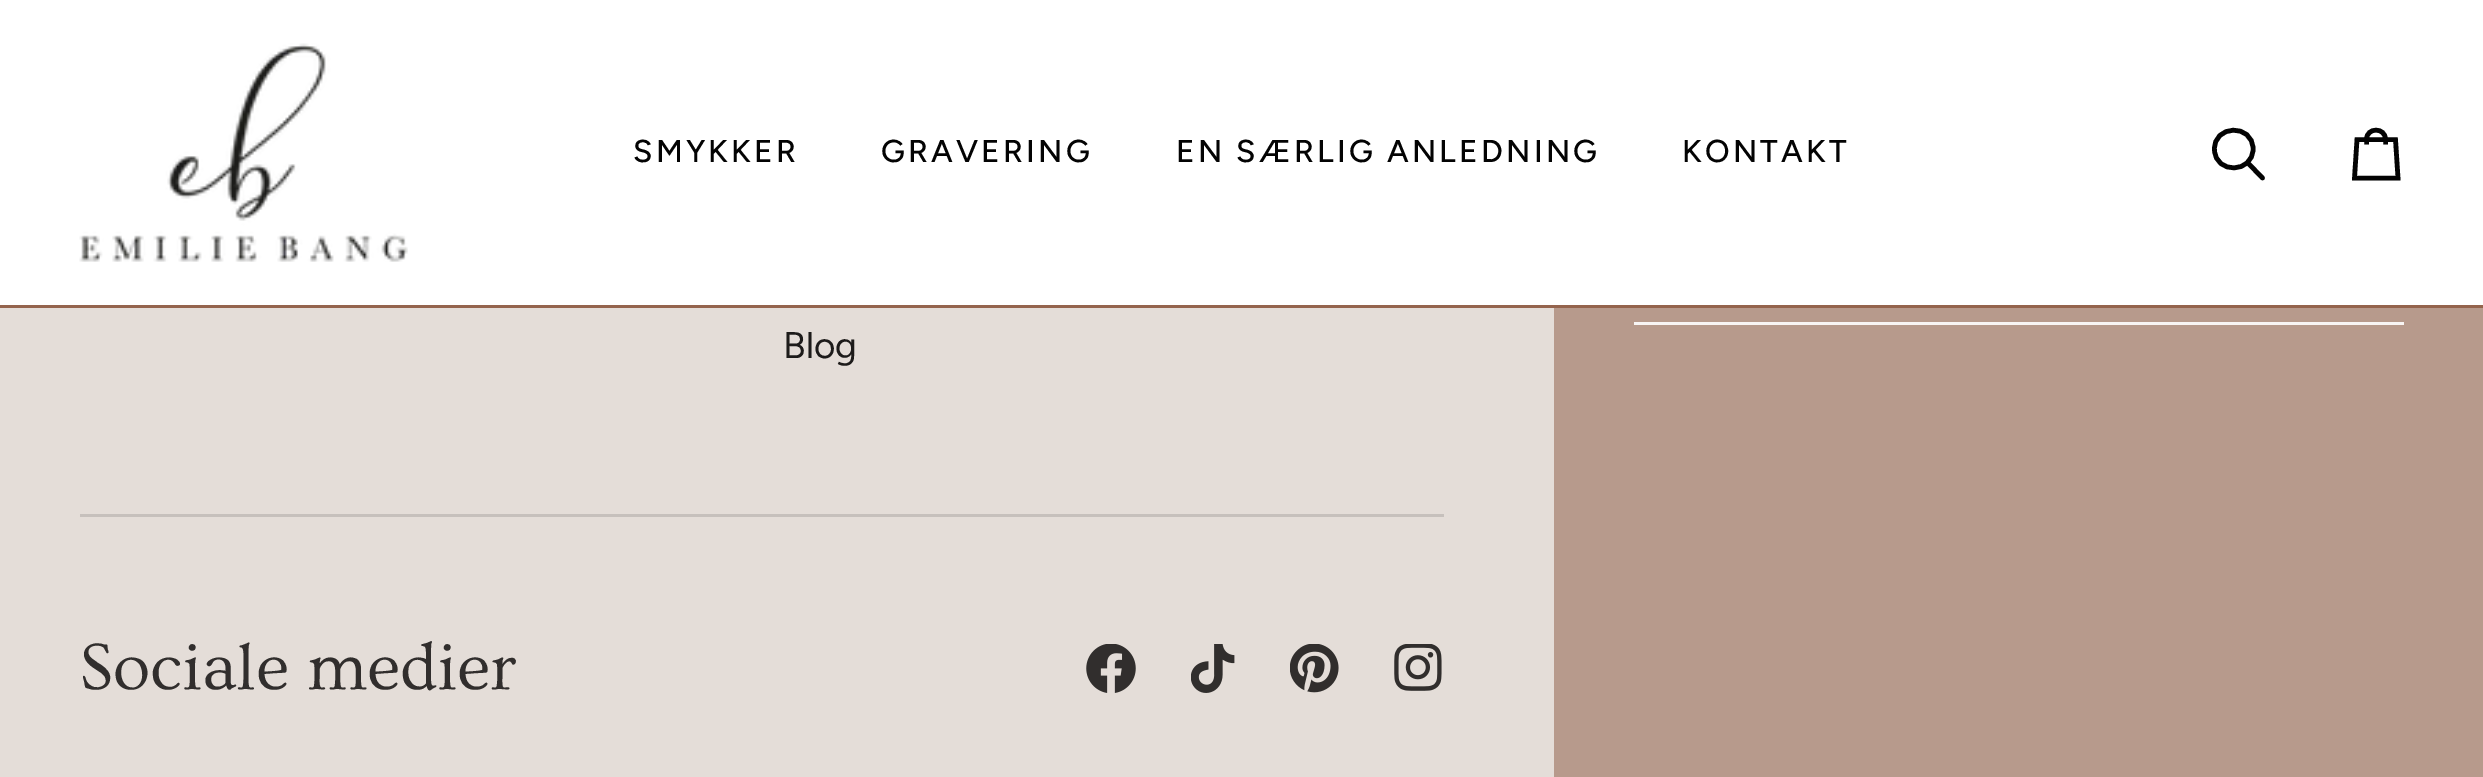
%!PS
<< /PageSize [2483 777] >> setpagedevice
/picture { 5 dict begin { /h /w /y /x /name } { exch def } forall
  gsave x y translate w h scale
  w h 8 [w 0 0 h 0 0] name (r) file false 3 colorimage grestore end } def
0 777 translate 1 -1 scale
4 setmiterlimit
0.894 0.867 0.847 setrgbcolor
0 0 2483 777 rectfill
0.58 0.392 0.302 setrgbcolor
0 305 2483 3 rectfill
1 setgray
0 0 2483 305 rectfill
(img1.rgb) 79 43 329 219 picture
/Figtree-Medium [31.6 0 0 -31.6 0 0] selectfont
0.012 setgray
633 162 moveto 3.2 0 (SMYKKER) ashow
881 162 moveto 3.2 0 (GRAVERING) ashow
1176 162 moveto 3.2 0 (EN SÆRLIG ANLEDNING) ashow
1682 162 moveto 3.2 0 (KONTAKT) ashow
4.6 setlinewidth
1 setlinecap
1 setlinejoin
newpath 2253 149 moveto 2253 173.5 2215.5 174.5 2214.5 150 curveto 2213 124.5 2253 123 2253 149 curveto closepath 2262.5 178 moveto 2247.5 162.5 lineto closepath stroke
0 setlinecap
0 setlinejoin
newpath 2385.5 144.5 moveto 2385.5 139.5 lineto 2395.5 139.5 lineto 2398 178 lineto 2354.5 178 lineto 2357 139.5 lineto 2366.5 139.5 lineto 2366.5 127 2385.5 127 2385.5 139.5 curveto 2366.5 139.5 lineto 2366.5 144.5 lineto stroke
/Figtree-Regular [37 0 0 -37 0 0] selectfont
0.114 0.106 0.102 setrgbcolor
783 358 moveto (Blog) show
0.776 0.753 0.737 setrgbcolor
80 514 1364 3 rectfill
/Ovo-Regular [68.75 0 0 -68.75 0 0] selectfont
0.192 0.18 0.176 setrgbcolor
79 689 moveto (Sociale medier) show
(img2.rgb) 1086 644 50 49 picture
(img3.rgb) 1191 644 44 49 picture
(img4.rgb) 1290 644 49 49 picture
(img5.rgb) 1394 644 48 47 picture
0.718 0.604 0.549 setrgbcolor
1554 308 929 469 rectfill
0.973 0.961 0.957 setrgbcolor
1634 322 770 3 rectfill
showpage
